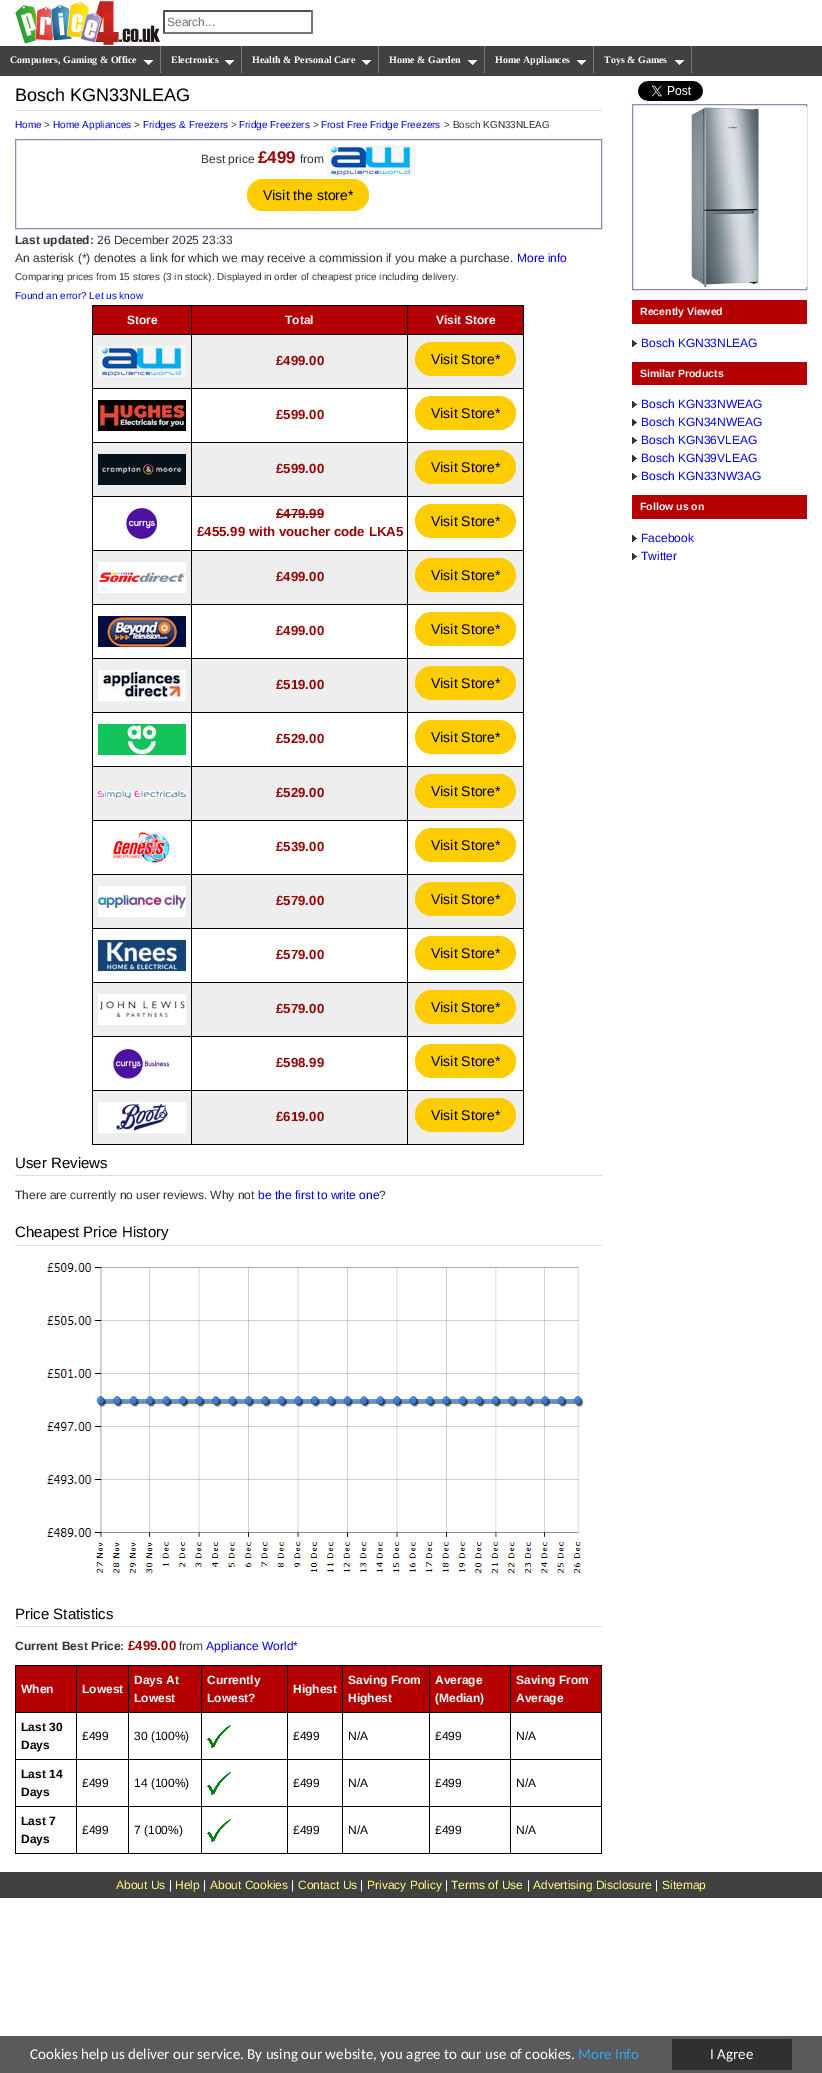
%!PS
<< /PageSize [822 2073] >> setpagedevice
/roundrect { 5 dict begin { /r /h /w /y /x } { exch def } forall
  x r add y moveto x w add y 2 copy h add r arct x w add y h add x 1 index r arct
  x y h add x y r arct x y 2 copy exch w add exch r arct closepath end } def
/picture { 5 dict begin { /h /w /y /x /name } { exch def } forall
  gsave x y translate w h scale
  w h 8 [w 0 0 h 0 0] name (r) file false 3 colorimage grestore end } def
0 2073 translate 1 -1 scale
4 setmiterlimit
1 setgray
0 0 822 2073 rectfill
(img1.rgb) 15 1 145 44 picture
0.31 setgray
newpath 163 10 moveto 313 10 lineto 311 12 lineto 165 12 lineto closepath fill
0.463 setgray
newpath 313 10 moveto 313 34 lineto 311 32 lineto 311 12 lineto closepath fill
newpath 313 34 moveto 163 34 lineto 165 32 lineto 311 32 lineto closepath fill
0.31 setgray
newpath 163 34 moveto 163 10 lineto 165 12 lineto 165 32 lineto closepath fill
/LiberationSans-Regular [12 0 0 -12 0 0] selectfont
0.459 setgray
167 26 moveto (Search...) show
0.255 setgray
0 46 822 30 rectfill
0.467 0.467 0.533 setrgbcolor
160 46 1 27 rectfill
/LiberationSerif-Bold [10 0 0 -10 0 0] selectfont
1 setgray
10 63 moveto (Computers, Gaming & Office) show
(img2.rgb) 143 59 11 7 picture
0.467 0.467 0.533 setrgbcolor
241 46 1 27 rectfill
1 setgray
171 63 moveto (Electronics) show
(img2.rgb) 224 59 11 7 picture
0.467 0.467 0.533 setrgbcolor
378 46 1 27 rectfill
1 setgray
252 63 moveto (Health & Personal Care) show
(img2.rgb) 361 59 11 7 picture
0.467 0.467 0.533 setrgbcolor
484 46 1 27 rectfill
1 setgray
389 63 moveto (Home & Garden) show
(img2.rgb) 467 59 11 7 picture
0.467 0.467 0.533 setrgbcolor
593 46 1 27 rectfill
1 setgray
495 63 moveto (Home Appliances) show
(img2.rgb) 576 59 11 7 picture
0.467 0.467 0.533 setrgbcolor
691 46 1 27 rectfill
1 setgray
604 63 moveto (Toys & Games) show
(img2.rgb) 674 59 11 7 picture
0.867 setgray
15 110 587 1 rectfill
/LiberationSans-Regular [18 0 0 -18 0 0] selectfont
0 setgray
15 101 moveto (Bosch KGN33NLEAG) show
/LiberationSans-Regular [10 0 0 -10 0 0] selectfont
0 0 0.933 setrgbcolor
15 128 moveto (Home) show
0.2 setgray
44 128 moveto (>) show
0 0 0.933 setrgbcolor
53 128 moveto (Home Appliances) show
0.2 setgray
134 128 moveto (>) show
0 0 0.933 setrgbcolor
143 128 moveto (Fridges & Freezers) show
0.2 setgray
231 128 moveto (>) show
0 0 0.933 setrgbcolor
239 128 moveto (Fridge Freezers) show
0.2 setgray
313 128 moveto (>) show
0 0 0.933 setrgbcolor
321 128 moveto (Frost Free Fridge Freezers) show
0.2 setgray
444 128 moveto (> Bosch KGN33NLEAG) show
0.565 0.525 0.718 setrgbcolor
15.5 139.5 586 89 rectstroke
/LiberationSans-Regular [12 0 0 -12 0 0] selectfont
0.2 setgray
201 163 moveto (Best price) show
/LiberationSans-Bold [17 0 0 -17 0 0] selectfont
0.6 0 0 setrgbcolor
258 163 moveto (£499) show
/LiberationSans-Regular [12 0 0 -12 0 0] selectfont
0.2 setgray
300 163 moveto (from) show
(img3.rgb) 327 145 88 31 picture
1 0.8 0 setrgbcolor
247 179 122 32 16 roundrect fill
/LiberationSans-Regular [14 0 0 -14 0 0] selectfont
0 setgray
263 200 moveto (Visit the store*) show
/LiberationSans-Bold [12 0 0 -12 0 0] selectfont
0.2 setgray
15 244 moveto (Last updated:) show
/LiberationSans-Regular [12 0 0 -12 0 0] selectfont
97 244 moveto (26 December 2025 23:33) show
15 262 moveto (An asterisk \(*\) denotes a link for which we may receive a commission if you make a purchase.) show
0 0 0.933 setrgbcolor
517 262 moveto (More info) show
/LiberationSans-Regular [10 0 0 -10 0 0] selectfont
0.2 setgray
15 280 moveto (Comparing prices from 15 stores \(3 in stock\). Displayed in order of cheapest price including delivery.) show
0 0 0.933 setrgbcolor
15 299 moveto (Found an error? Let us know) show
0 setgray
92 305 432 1 rectfill
523 305 1 840 rectfill
92 1144 432 1 rectfill
92 305 1 840 rectfill
0.706 0 0 setrgbcolor
93 306 98 28 rectfill
/LiberationSans-Bold [12 0 0 -12 0 0] selectfont
1 setgray
127 324 moveto (Store) show
0.706 0 0 setrgbcolor
192 306 215 28 rectfill
0 setgray
407 334 117 1 rectfill
0.933 setgray
93 335 430 53 rectfill
0 setgray
407 388 117 1 rectfill
407 442 117 1 rectfill
0.933 setgray
93 443 430 53 rectfill
0 setgray
407 496 117 1 rectfill
407 550 117 1 rectfill
0.933 setgray
93 551 430 53 rectfill
0 setgray
407 604 117 1 rectfill
407 658 117 1 rectfill
0.933 setgray
93 659 430 53 rectfill
0 setgray
407 712 117 1 rectfill
407 766 117 1 rectfill
0.933 setgray
93 767 430 53 rectfill
0 setgray
407 820 117 1 rectfill
407 874 117 1 rectfill
0.933 setgray
93 875 430 53 rectfill
0 setgray
407 928 117 1 rectfill
407 982 117 1 rectfill
0.933 setgray
93 983 430 53 rectfill
0 setgray
407 1036 117 1 rectfill
407 1090 117 1 rectfill
0.933 setgray
93 1091 430 53 rectfill
0 setgray
407 1090 1 55 rectfill
191 1090 217 1 rectfill
407 1036 1 55 rectfill
191 1036 217 1 rectfill
407 982 1 55 rectfill
191 982 217 1 rectfill
407 928 1 55 rectfill
191 928 217 1 rectfill
407 874 1 55 rectfill
191 874 217 1 rectfill
407 820 1 55 rectfill
191 820 217 1 rectfill
407 766 1 55 rectfill
191 766 217 1 rectfill
407 712 1 55 rectfill
191 712 217 1 rectfill
407 658 1 55 rectfill
191 658 217 1 rectfill
407 604 1 55 rectfill
191 604 217 1 rectfill
407 550 1 55 rectfill
191 550 217 1 rectfill
407 496 1 55 rectfill
191 496 217 1 rectfill
407 442 1 55 rectfill
191 442 217 1 rectfill
407 388 1 55 rectfill
191 388 217 1 rectfill
407 334 1 55 rectfill
191 334 217 1 rectfill
191 1090 1 55 rectfill
92 1090 100 1 rectfill
191 1036 1 55 rectfill
92 1036 100 1 rectfill
191 982 1 55 rectfill
92 982 100 1 rectfill
191 928 1 55 rectfill
92 928 100 1 rectfill
191 874 1 55 rectfill
92 874 100 1 rectfill
191 820 1 55 rectfill
92 820 100 1 rectfill
191 766 1 55 rectfill
92 766 100 1 rectfill
191 712 1 55 rectfill
92 712 100 1 rectfill
191 658 1 55 rectfill
92 658 100 1 rectfill
191 604 1 55 rectfill
92 604 100 1 rectfill
191 550 1 55 rectfill
92 550 100 1 rectfill
191 496 1 55 rectfill
92 496 100 1 rectfill
191 442 1 55 rectfill
92 442 100 1 rectfill
191 388 1 55 rectfill
92 388 100 1 rectfill
191 334 1 55 rectfill
92 334 100 1 rectfill
191 305 1 30 rectfill
1 setgray
285 324 moveto (Total) show
0.706 0 0 setrgbcolor
408 306 115 28 rectfill
0 setgray
407 305 1 30 rectfill
1 setgray
436 324 moveto (Visit Store) show
(img3.rgb) 98 346 88 31 picture
/LiberationSans-Bold [13.25 0 0 -13.25 0 0] selectfont
0.6 0 0 setrgbcolor
276 365 moveto (£499.00) show
1 0.8 0 setrgbcolor
415 342 101 34 17 roundrect fill
/LiberationSans-Regular [14 0 0 -14 0 0] selectfont
0 setgray
431 364 moveto (Visit Store*) show
(img4.rgb) 98 400 88 31 picture
/LiberationSans-Bold [13.25 0 0 -13.25 0 0] selectfont
0.6 0 0 setrgbcolor
276 419 moveto (£599.00) show
1 0.8 0 setrgbcolor
415 396 101 34 17 roundrect fill
/LiberationSans-Regular [14 0 0 -14 0 0] selectfont
0 setgray
431 418 moveto (Visit Store*) show
(img5.rgb) 98 454 88 31 picture
/LiberationSans-Bold [13.25 0 0 -13.25 0 0] selectfont
0.6 0 0 setrgbcolor
276 473 moveto (£599.00) show
1 0.8 0 setrgbcolor
415 450 101 34 17 roundrect fill
/LiberationSans-Regular [14 0 0 -14 0 0] selectfont
0 setgray
431 472 moveto (Visit Store*) show
(img6.rgb) 126 508 31 31 picture
/LiberationSans-Bold [13.25 0 0 -13.25 0 0] selectfont
0.6 0 0 setrgbcolor
276 518 moveto (£479.99) show
276 514 47 1 rectfill
197 536 moveto (£455.99 with voucher code LKA5) show
1 0.8 0 setrgbcolor
415 504 101 34 17 roundrect fill
/LiberationSans-Regular [14 0 0 -14 0 0] selectfont
0 setgray
431 526 moveto (Visit Store*) show
(img7.rgb) 98 562 88 31 picture
/LiberationSans-Bold [13.25 0 0 -13.25 0 0] selectfont
0.6 0 0 setrgbcolor
276 581 moveto (£499.00) show
1 0.8 0 setrgbcolor
415 558 101 34 17 roundrect fill
/LiberationSans-Regular [14 0 0 -14 0 0] selectfont
0 setgray
431 580 moveto (Visit Store*) show
(img8.rgb) 98 616 88 31 picture
/LiberationSans-Bold [13.25 0 0 -13.25 0 0] selectfont
0.6 0 0 setrgbcolor
276 635 moveto (£499.00) show
1 0.8 0 setrgbcolor
415 612 101 34 17 roundrect fill
/LiberationSans-Regular [14 0 0 -14 0 0] selectfont
0 setgray
431 634 moveto (Visit Store*) show
(img9.rgb) 98 670 88 31 picture
/LiberationSans-Bold [13.25 0 0 -13.25 0 0] selectfont
0.6 0 0 setrgbcolor
276 689 moveto (£519.00) show
1 0.8 0 setrgbcolor
415 666 101 34 17 roundrect fill
/LiberationSans-Regular [14 0 0 -14 0 0] selectfont
0 setgray
431 688 moveto (Visit Store*) show
(img10.rgb) 98 724 88 31 picture
/LiberationSans-Bold [13.25 0 0 -13.25 0 0] selectfont
0.6 0 0 setrgbcolor
276 743 moveto (£529.00) show
1 0.8 0 setrgbcolor
415 720 101 34 17 roundrect fill
/LiberationSans-Regular [14 0 0 -14 0 0] selectfont
0 setgray
431 742 moveto (Visit Store*) show
(img11.rgb) 98 791 88 7 picture
/LiberationSans-Bold [13.25 0 0 -13.25 0 0] selectfont
0.6 0 0 setrgbcolor
276 797 moveto (£529.00) show
1 0.8 0 setrgbcolor
415 774 101 34 17 roundrect fill
/LiberationSans-Regular [14 0 0 -14 0 0] selectfont
0 setgray
431 796 moveto (Visit Store*) show
(img12.rgb) 113 832 57 31 picture
/LiberationSans-Bold [13.25 0 0 -13.25 0 0] selectfont
0.6 0 0 setrgbcolor
276 851 moveto (£539.00) show
1 0.8 0 setrgbcolor
415 828 101 34 17 roundrect fill
/LiberationSans-Regular [14 0 0 -14 0 0] selectfont
0 setgray
431 850 moveto (Visit Store*) show
(img13.rgb) 98 886 88 31 picture
/LiberationSans-Bold [13.25 0 0 -13.25 0 0] selectfont
0.6 0 0 setrgbcolor
276 905 moveto (£579.00) show
1 0.8 0 setrgbcolor
415 882 101 34 17 roundrect fill
/LiberationSans-Regular [14 0 0 -14 0 0] selectfont
0 setgray
431 904 moveto (Visit Store*) show
(img14.rgb) 98 940 88 31 picture
/LiberationSans-Bold [13.25 0 0 -13.25 0 0] selectfont
0.6 0 0 setrgbcolor
276 959 moveto (£579.00) show
1 0.8 0 setrgbcolor
415 936 101 34 17 roundrect fill
/LiberationSans-Regular [14 0 0 -14 0 0] selectfont
0 setgray
431 958 moveto (Visit Store*) show
(img15.rgb) 98 994 88 31 picture
/LiberationSans-Bold [13.25 0 0 -13.25 0 0] selectfont
0.6 0 0 setrgbcolor
276 1013 moveto (£579.00) show
1 0.8 0 setrgbcolor
415 990 101 34 17 roundrect fill
/LiberationSans-Regular [14 0 0 -14 0 0] selectfont
0 setgray
431 1012 moveto (Visit Store*) show
(img16.rgb) 108 1048 64 31 picture
/LiberationSans-Bold [13.25 0 0 -13.25 0 0] selectfont
0.6 0 0 setrgbcolor
276 1067 moveto (£598.99) show
1 0.8 0 setrgbcolor
415 1044 101 34 17 roundrect fill
/LiberationSans-Regular [14 0 0 -14 0 0] selectfont
0 setgray
431 1066 moveto (Visit Store*) show
(img17.rgb) 98 1102 88 31 picture
/LiberationSans-Bold [13.25 0 0 -13.25 0 0] selectfont
0.6 0 0 setrgbcolor
276 1121 moveto (£619.00) show
1 0.8 0 setrgbcolor
415 1098 101 34 17 roundrect fill
/LiberationSans-Regular [14 0 0 -14 0 0] selectfont
0 setgray
431 1120 moveto (Visit Store*) show
0.867 setgray
15 1175 587 1 rectfill
/LiberationSans-Regular [15 0 0 -15 0 0] selectfont
0 setgray
15 1168 moveto (User Reviews) show
/LiberationSans-Regular [12 0 0 -12 0 0] selectfont
0.2 setgray
15 1199 moveto (There are currently no user reviews. Why not) show
0 0 0.933 setrgbcolor
258 1199 moveto (be the first to write one) show
0.2 setgray
379 1199 moveto (?) show
0.867 setgray
15 1245 587 1 rectfill
/LiberationSans-Regular [15 0 0 -15 0 0] selectfont
0 setgray
15 1237 moveto (Cheapest Price History) show
(img18.rgb) 46 1263 538 310 picture
0.867 setgray
15 1626 587 1 rectfill
0 setgray
15 1619 moveto (Price Statistics) show
/LiberationSans-Bold [12 0 0 -12 0 0] selectfont
0.2 setgray
15 1650 moveto (Current Best Price:) show
/LiberationSans-Bold [13.25 0 0 -13.25 0 0] selectfont
0.6 0 0 setrgbcolor
128 1650 moveto (£499.00) show
/LiberationSans-Regular [12 0 0 -12 0 0] selectfont
0.2 setgray
179 1650 moveto (from) show
0 0 0.933 setrgbcolor
206 1650 moveto (Appliance World*) show
0 setgray
15 1665 587 1 rectfill
601 1665 1 189 rectfill
15 1853 587 1 rectfill
15 1665 1 189 rectfill
0.706 0 0 setrgbcolor
16 1666 585 46 rectfill
/LiberationSans-Bold [12 0 0 -12 0 0] selectfont
1 setgray
21 1693 moveto (When) show
0 setgray
510 1712 92 1 rectfill
510 1759 92 1 rectfill
510 1806 92 1 rectfill
510 1806 1 48 rectfill
429 1806 82 1 rectfill
510 1759 1 48 rectfill
429 1759 82 1 rectfill
510 1712 1 48 rectfill
429 1712 82 1 rectfill
429 1806 1 48 rectfill
342 1806 88 1 rectfill
429 1759 1 48 rectfill
342 1759 88 1 rectfill
429 1712 1 48 rectfill
342 1712 88 1 rectfill
342 1806 1 48 rectfill
287 1806 56 1 rectfill
342 1759 1 48 rectfill
287 1759 56 1 rectfill
342 1712 1 48 rectfill
287 1712 56 1 rectfill
287 1806 1 48 rectfill
201 1806 87 1 rectfill
287 1759 1 48 rectfill
201 1759 87 1 rectfill
287 1712 1 48 rectfill
201 1712 87 1 rectfill
201 1806 1 48 rectfill
128 1806 74 1 rectfill
201 1759 1 48 rectfill
128 1759 74 1 rectfill
201 1712 1 48 rectfill
128 1712 74 1 rectfill
128 1806 1 48 rectfill
76 1806 53 1 rectfill
128 1759 1 48 rectfill
76 1759 53 1 rectfill
128 1712 1 48 rectfill
76 1712 53 1 rectfill
76 1806 1 48 rectfill
15 1806 62 1 rectfill
76 1759 1 48 rectfill
15 1759 62 1 rectfill
76 1712 1 48 rectfill
15 1712 62 1 rectfill
76 1665 1 48 rectfill
1 setgray
82 1693 moveto (Lowest) show
0 setgray
128 1665 1 48 rectfill
1 setgray
134 1684 moveto (Days At) show
134 1702 moveto (Lowest) show
0 setgray
201 1665 1 48 rectfill
1 setgray
207 1684 moveto (Currently) show
207 1702 moveto (Lowest?) show
0 setgray
287 1665 1 48 rectfill
1 setgray
293 1693 moveto (Highest) show
0 setgray
342 1665 1 48 rectfill
1 setgray
348 1684 moveto (Saving From) show
348 1702 moveto (Highest) show
0 setgray
429 1665 1 48 rectfill
1 setgray
435 1684 moveto (Average) show
435 1702 moveto (\(Median\)) show
0 setgray
510 1665 1 48 rectfill
1 setgray
516 1684 moveto (Saving From) show
516 1702 moveto (Average) show
0 setgray
21 1731 moveto (Last 30) show
21 1749 moveto (Days) show
/LiberationSans-Regular [12 0 0 -12 0 0] selectfont
82 1740 moveto (£499) show
134 1740 moveto (30 \(100%\)) show
(img19.rgb) 207 1725 24 23 picture
293 1740 moveto (£499) show
348 1740 moveto (N/A) show
435 1740 moveto (£499) show
516 1740 moveto (N/A) show
/LiberationSans-Bold [12 0 0 -12 0 0] selectfont
21 1778 moveto (Last 14) show
21 1796 moveto (Days) show
/LiberationSans-Regular [12 0 0 -12 0 0] selectfont
82 1787 moveto (£499) show
134 1787 moveto (14 \(100%\)) show
(img19.rgb) 207 1772 24 23 picture
293 1787 moveto (£499) show
348 1787 moveto (N/A) show
435 1787 moveto (£499) show
516 1787 moveto (N/A) show
/LiberationSans-Bold [12 0 0 -12 0 0] selectfont
21 1825 moveto (Last 7) show
21 1843 moveto (Days) show
/LiberationSans-Regular [12 0 0 -12 0 0] selectfont
82 1834 moveto (£499) show
134 1834 moveto (7 \(100%\)) show
(img19.rgb) 207 1819 24 23 picture
293 1834 moveto (£499) show
348 1834 moveto (N/A) show
435 1834 moveto (£499) show
516 1834 moveto (N/A) show
(img20.rgb) 638 81 65 20 picture
0.565 0.525 0.718 setrgbcolor
632.5 104.5 174 185 rectstroke
(img21.rgb) 691 107 116 180 picture
0.706 0 0 setrgbcolor
632 300 175 24 rectfill
/LiberationSans-Bold [10.5 0 0 -10.5 0 0] selectfont
1 setgray
640 315 moveto (Recently Viewed) show
(img22.rgb) 632 340 5 7 picture
/LiberationSans-Regular [12 0 0 -12 0 0] selectfont
0 0 0.933 setrgbcolor
641 347 moveto (Bosch KGN33NLEAG) show
0.706 0 0 setrgbcolor
632 362 175 23 rectfill
/LiberationSans-Bold [10.5 0 0 -10.5 0 0] selectfont
1 setgray
640 377 moveto (Similar Products) show
(img22.rgb) 632 401 5 7 picture
/LiberationSans-Regular [12 0 0 -12 0 0] selectfont
0 0 0.933 setrgbcolor
641 408 moveto (Bosch KGN33NWEAG) show
(img22.rgb) 632 419 5 7 picture
641 426 moveto (Bosch KGN34NWEAG) show
(img22.rgb) 632 437 5 7 picture
641 444 moveto (Bosch KGN36VLEAG) show
(img22.rgb) 632 455 5 7 picture
641 462 moveto (Bosch KGN39VLEAG) show
(img22.rgb) 632 473 5 7 picture
641 480 moveto (Bosch KGN33NW3AG) show
0.706 0 0 setrgbcolor
632 495 175 24 rectfill
/LiberationSans-Bold [10.5 0 0 -10.5 0 0] selectfont
1 setgray
640 510 moveto (Follow us on) show
(img22.rgb) 632 535 5 7 picture
/LiberationSans-Regular [12 0 0 -12 0 0] selectfont
0 0 0.933 setrgbcolor
641 542 moveto (Facebook) show
(img22.rgb) 632 553 5 7 picture
641 560 moveto (Twitter) show
0.255 setgray
0 1872 822 26 rectfill
1 1 0.502 setrgbcolor
116 1889 moveto (About Us) show
1 setgray
169 1889 moveto (|) show
1 1 0.502 setrgbcolor
175 1889 moveto (Help) show
1 setgray
203 1889 moveto (|) show
1 1 0.502 setrgbcolor
210 1889 moveto (About Cookies) show
1 setgray
291 1889 moveto (|) show
1 1 0.502 setrgbcolor
298 1889 moveto (Contact Us) show
1 setgray
360 1889 moveto (|) show
1 1 0.502 setrgbcolor
367 1889 moveto (Privacy Policy) show
1 setgray
445 1889 moveto (|) show
1 1 0.502 setrgbcolor
451 1889 moveto (Terms of Use) show
1 setgray
527 1889 moveto (|) show
1 1 0.502 setrgbcolor
533 1889 moveto (Advertising Disclosure) show
1 setgray
655 1889 moveto (|) show
1 1 0.502 setrgbcolor
662 1889 moveto (Sitemap) show
0.353 setgray
0 2036 822 37 rectfill
/Carlito-Regular [15 0 0 -15 0 0] selectfont
1 setgray
30 2059 moveto (Cookies help us deliver our service. By using our website, you agree to our use of cookies.) show
0.192 0.659 0.941 setrgbcolor
578 2059 moveto (More Info) show
0.188 setgray
672 2039 120 31 2 roundrect fill
1 setgray
710 2059 moveto (I Agree) show
showpage
